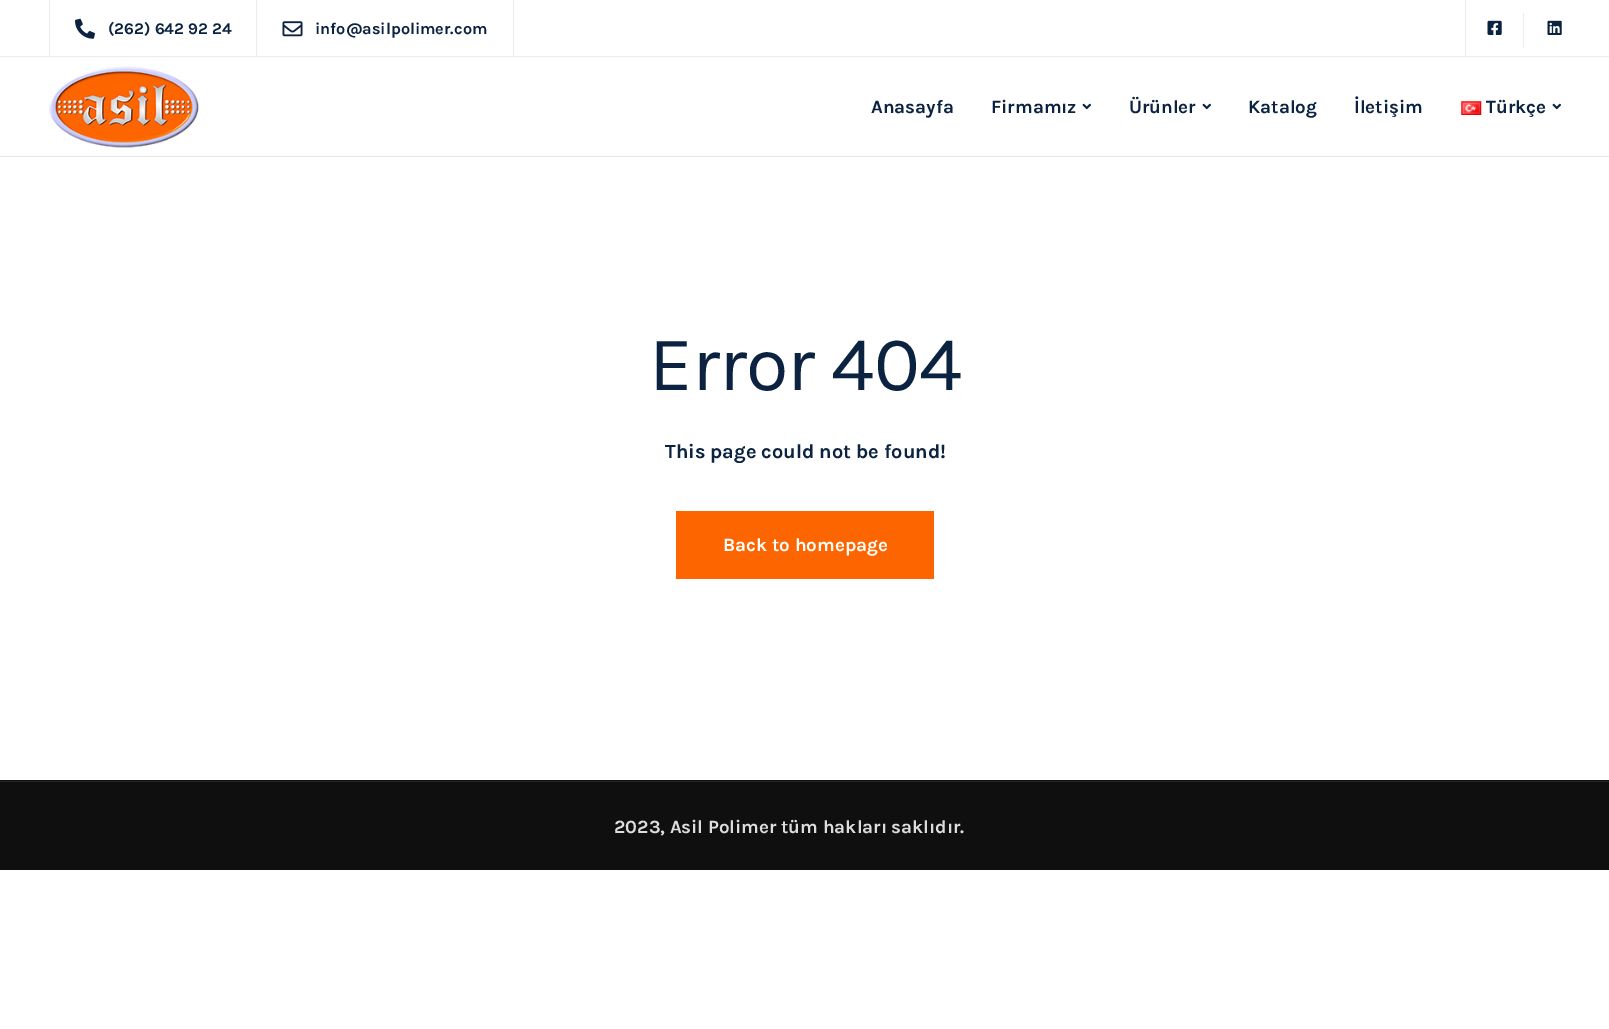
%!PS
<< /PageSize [1609 1029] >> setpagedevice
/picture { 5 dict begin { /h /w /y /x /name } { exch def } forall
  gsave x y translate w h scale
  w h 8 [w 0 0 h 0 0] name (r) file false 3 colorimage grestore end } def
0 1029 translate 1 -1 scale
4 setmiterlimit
1 setgray
0 0 1609 1029 rectfill
0.902 setgray
0 156 1609 1 rectfill
0.929 setgray
0 56 1609 1 rectfill
513 0 1 56 rectfill
49 0 1 56 rectfill
256 0 1 56 rectfill
(img1.rgb) 75 18 20 21 picture
/Karla-Bold [16.25 0 0 -16.25 0 0] selectfont
0.043 0.137 0.255 setrgbcolor
108 34 moveto (\(262\) 642 92 24) show
(img2.rgb) 282 21 21 16 picture
315 34 moveto (info@asilpolimer.com) show
0.929 setgray
1465 0 1 56 rectfill
1523 13 1 35 rectfill
(img3.rgb) 1487 20 15 15 picture
(img4.rgb) 1547 20 15 15 picture
(img5.rgb) 48 66 151 82 picture
/Karla-Bold [18.75 0 0 -18.75 0 0] selectfont
0.043 0.137 0.255 setrgbcolor
871 113 moveto (Anasayfa) show
991 113 moveto (Firmamız) show
(img6.rgb) 1082 103 9 7 picture
1129 113 moveto (Ürünler) show
(img6.rgb) 1202 103 9 7 picture
1248 113 moveto (Katalog) show
1354 113 moveto (İletişim) show
(img7.rgb) 1461 101 21 14 picture
1486 113 moveto (Türkçe) show
(img6.rgb) 1552 103 9 7 picture
/Karla-Regular [77.5 0 0 -77.5 0 0] selectfont
649 390 moveto -1 0 (Error 404) ashow
/Karla-Bold [20 0 0 -20 0 0] selectfont
665 458 moveto (This page could not be found!) show
0.992 0.396 0 setrgbcolor
676 511 258 68 rectfill
/Karla-Bold [18.75 0 0 -18.75 0 0] selectfont
1 setgray
723 551 moveto (Back to homepage) show
0.059 setgray
0 780 1609 1 rectfill
0 782 1609 88 rectfill
0.137 setgray
0 781 1609 1 rectfill
0.867 setgray
614 833 moveto (2023, Asil Polimer tüm hakları saklıdır.) show
showpage
